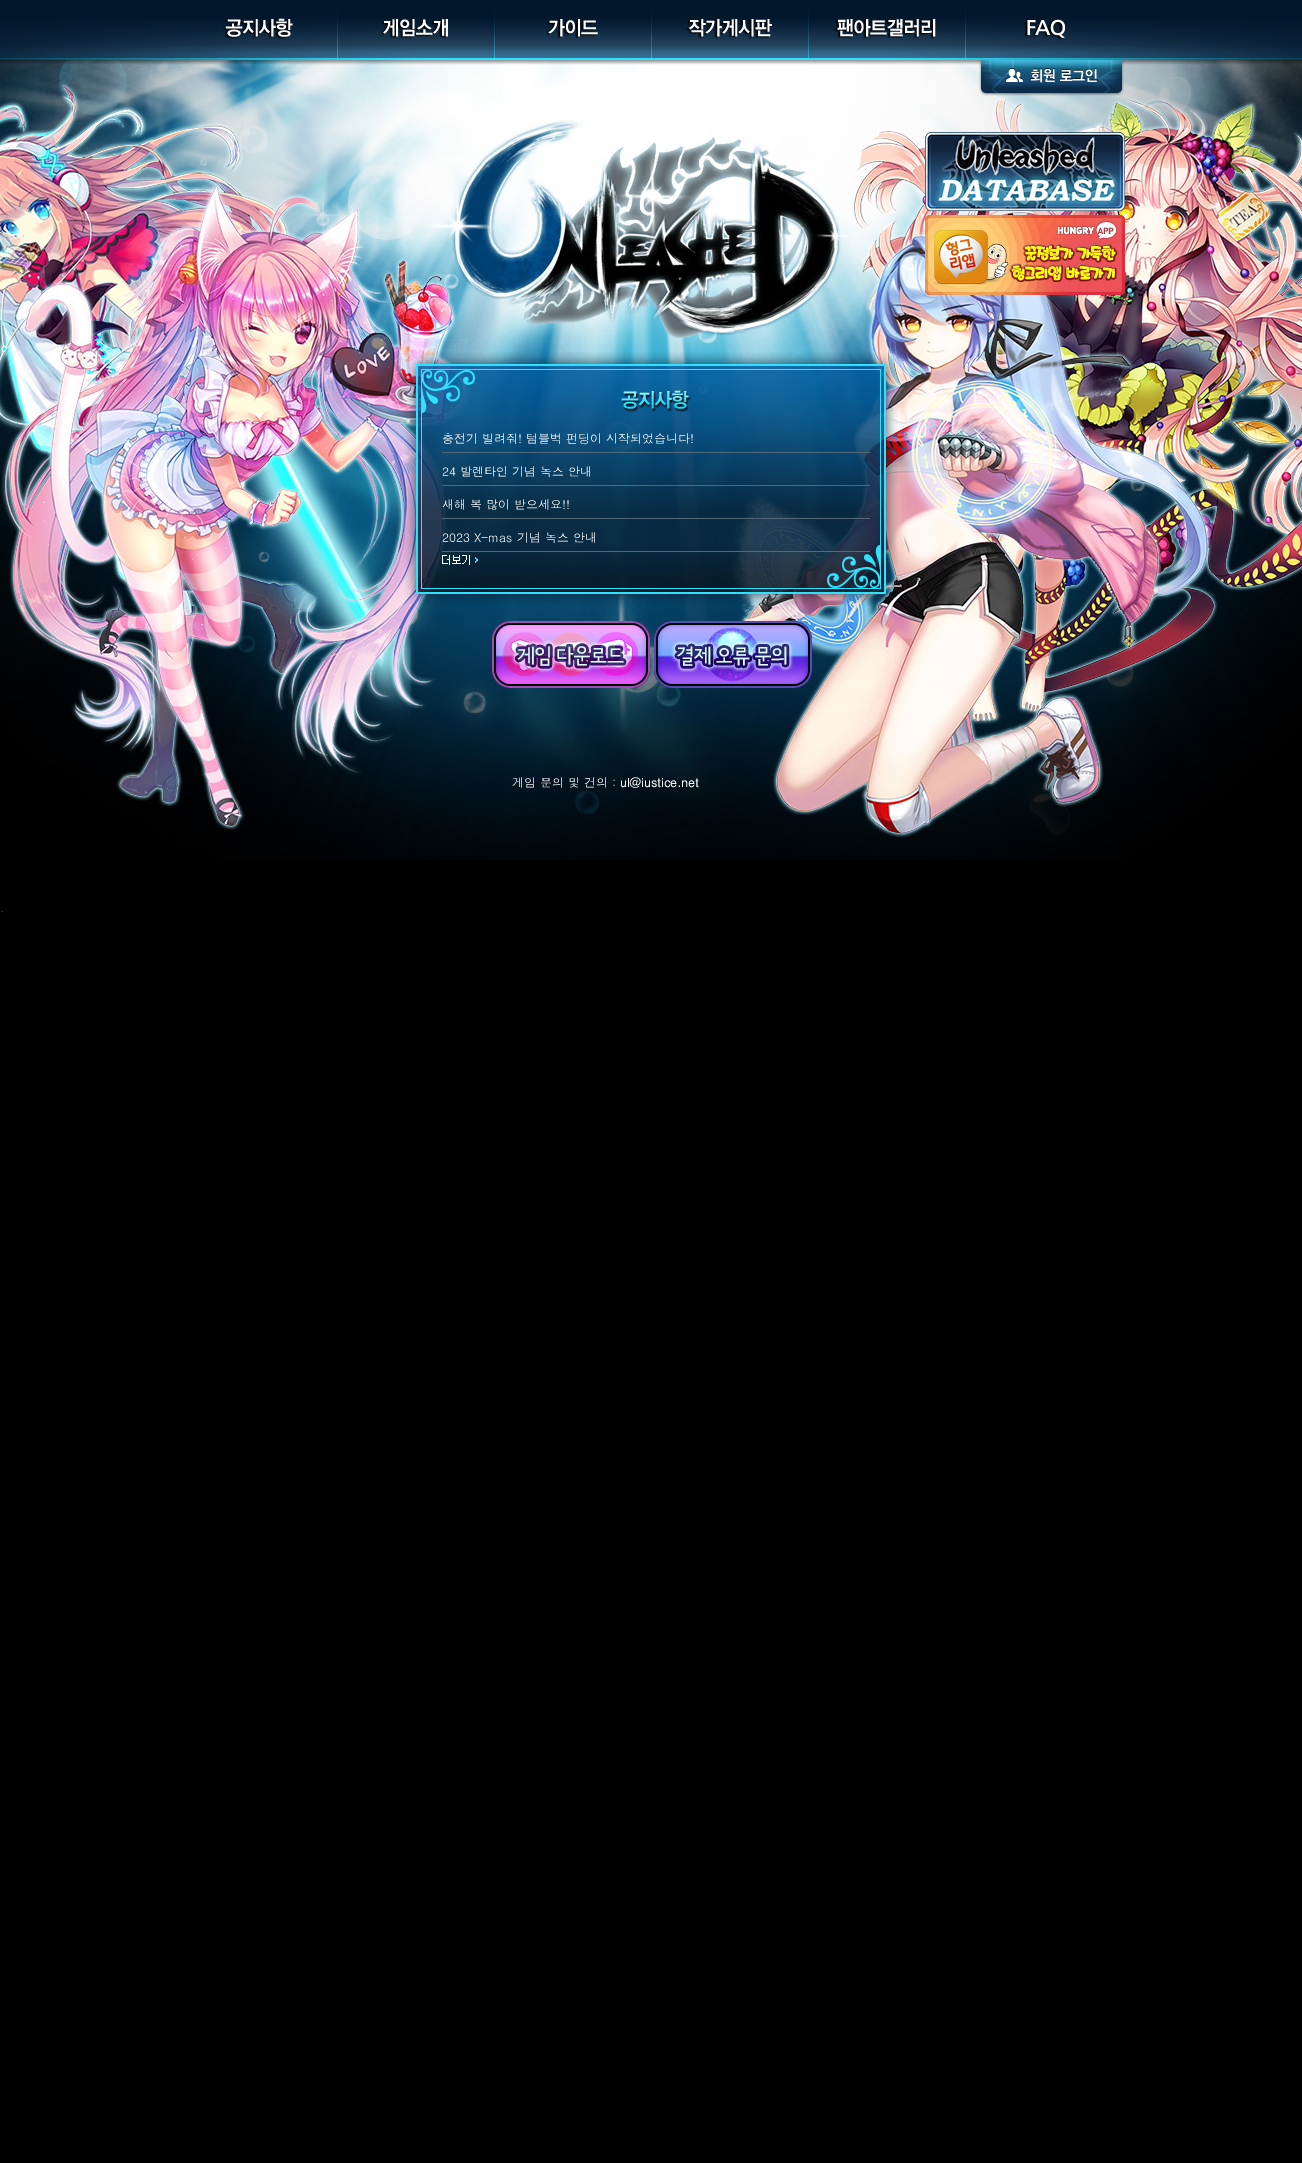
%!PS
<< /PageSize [1302 2163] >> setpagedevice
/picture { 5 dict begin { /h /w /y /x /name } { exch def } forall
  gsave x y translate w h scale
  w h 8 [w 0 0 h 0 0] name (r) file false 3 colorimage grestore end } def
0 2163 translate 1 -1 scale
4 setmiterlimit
0 setgray
0 0 1302 2163 rectfill
(img1.rgb) 0 0 1302 60 picture
(img2.rgb) 223 18 70 21 picture
(img3.rgb) 380 19 68 20 picture
(img4.rgb) 546 19 52 20 picture
(img5.rgb) 686 19 86 20 picture
(img6.rgb) 834 19 102 20 picture
(img7.rgb) 1024 19 41 21 picture
(img9.rgb) 0 60 1302 800 picture
(img8.rgb) 979 60 145 36 picture
(img10.rgb) 404 352 494 254 picture
(img11.rgb) 925 132 200 79 picture
(img12.rgb) 925 215 200 80 picture
(img13.rgb) 621 390 70 22 picture
0.325 0.412 0.475 setrgbcolor
442 452 428 1 rectfill
/Dotum-Regular [12 0 0 -12 0 0] selectfont
1 setgray
442 443 moveto (충전기 빌려줘! 텀블벅 펀딩이 시작되었습니다!) show
0.325 0.412 0.475 setrgbcolor
442 485 428 1 rectfill
1 setgray
442 476 moveto (24 발렌타인 기념 녹스 안내) show
0.325 0.412 0.475 setrgbcolor
442 518 428 1 rectfill
1 setgray
442 509 moveto (새해 복 많이 받으세요!!) show
0.325 0.412 0.475 setrgbcolor
442 551 428 1 rectfill
1 setgray
442 542 moveto (2023 X-mas 기념 녹스 안내) show
(img14.rgb) 442 555 36 10 picture
(img15.rgb) 492 621 158 67 picture
(img16.rgb) 654 621 158 67 picture
512 787 moveto (게임 문의 및 건의 :) show
/Dotum-Bold [12 0 0 -12 0 0] selectfont
620 787 moveto (ul@iustice.net) show
/Dotum-Regular [12 0 0 -12 0 0] selectfont
0.275 setgray
0 912 moveto (.) show
showpage
